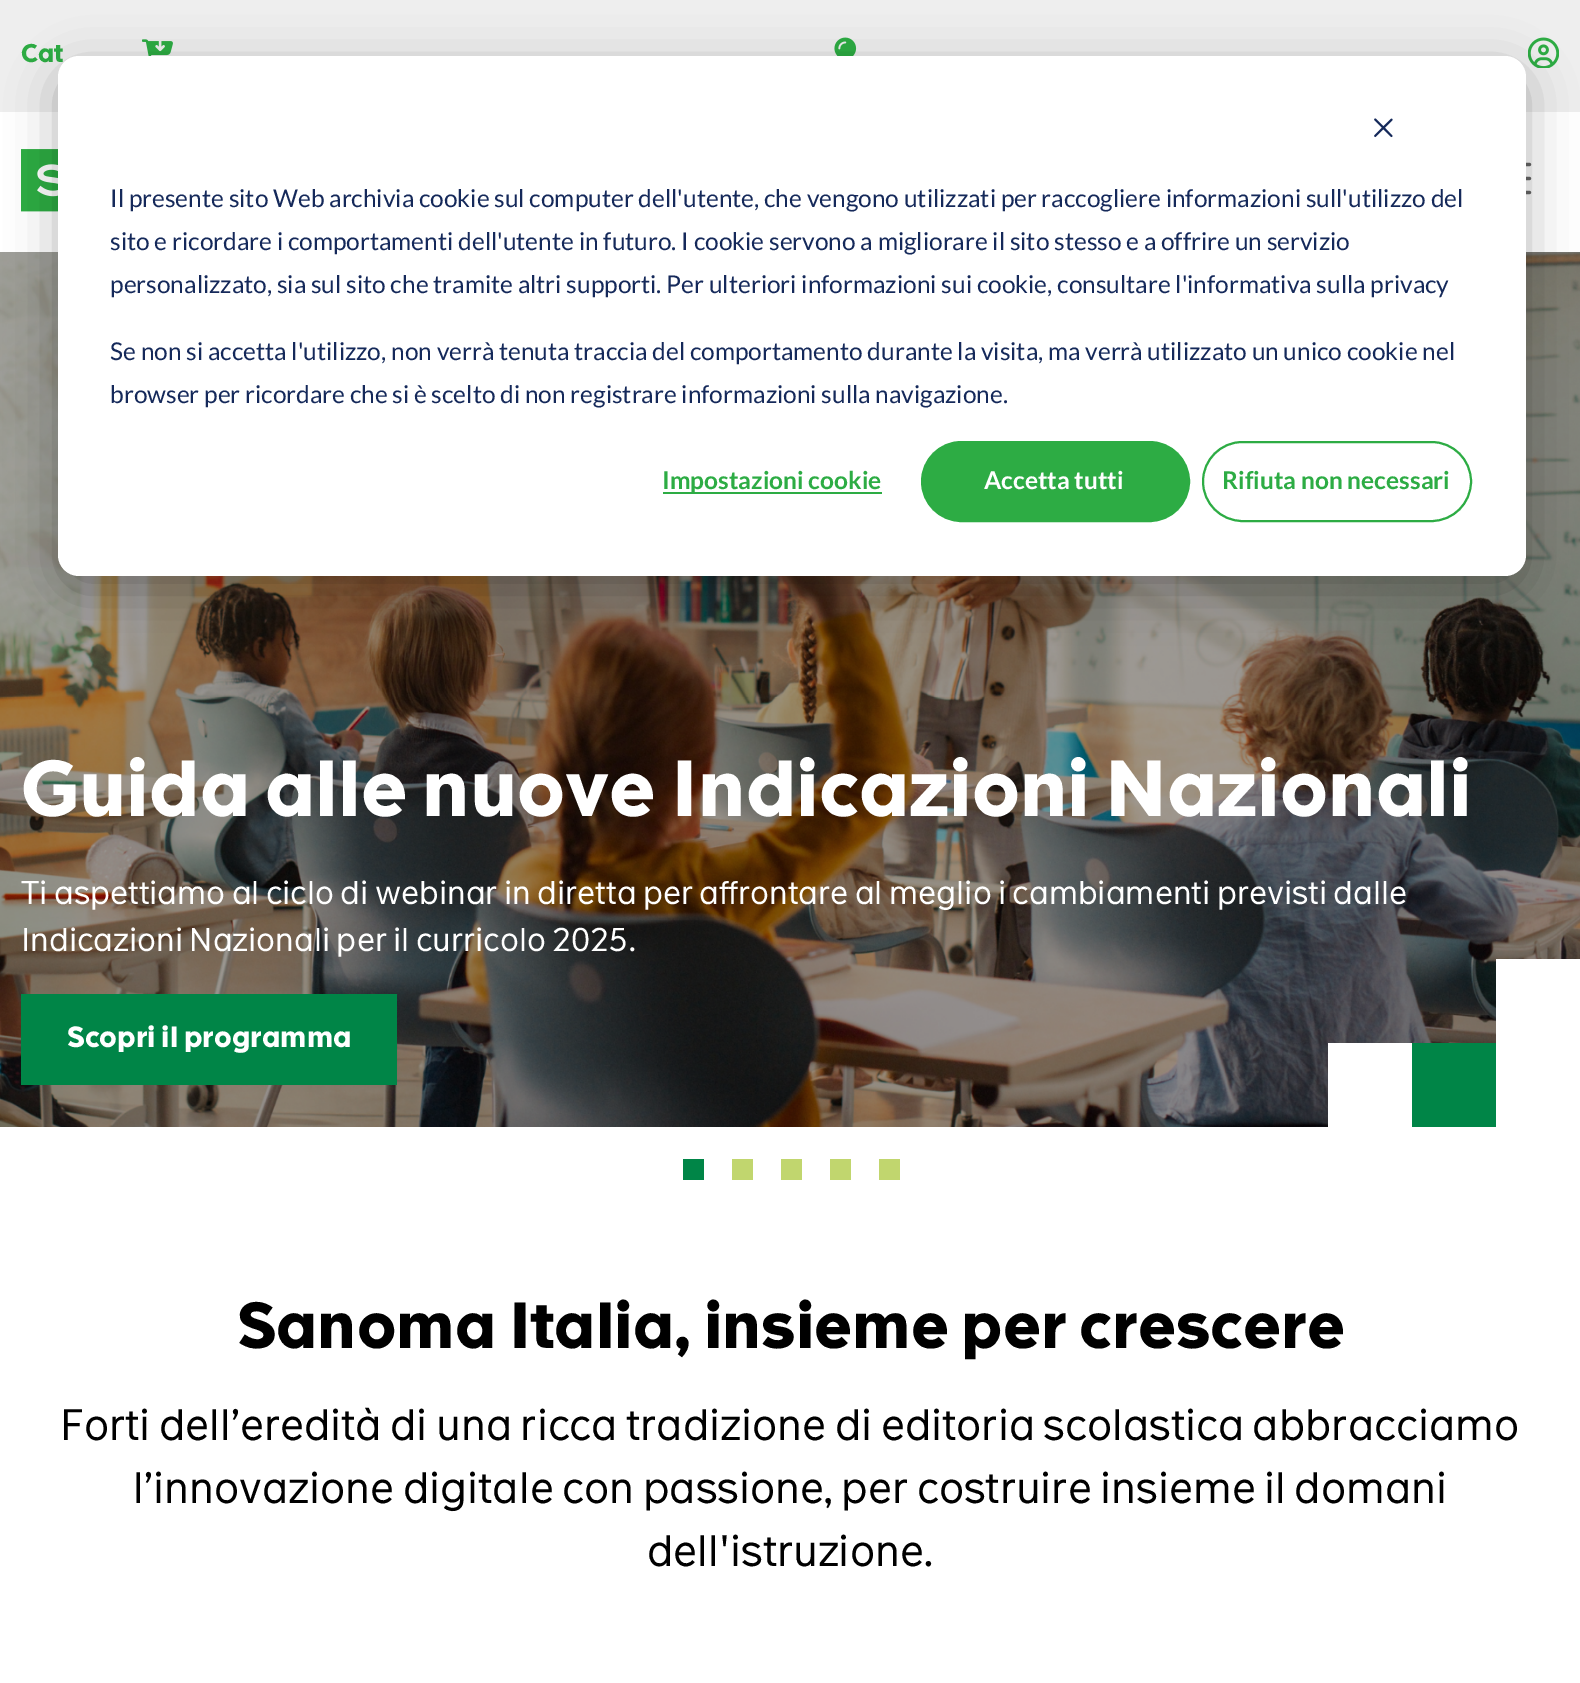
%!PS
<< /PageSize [1580 1683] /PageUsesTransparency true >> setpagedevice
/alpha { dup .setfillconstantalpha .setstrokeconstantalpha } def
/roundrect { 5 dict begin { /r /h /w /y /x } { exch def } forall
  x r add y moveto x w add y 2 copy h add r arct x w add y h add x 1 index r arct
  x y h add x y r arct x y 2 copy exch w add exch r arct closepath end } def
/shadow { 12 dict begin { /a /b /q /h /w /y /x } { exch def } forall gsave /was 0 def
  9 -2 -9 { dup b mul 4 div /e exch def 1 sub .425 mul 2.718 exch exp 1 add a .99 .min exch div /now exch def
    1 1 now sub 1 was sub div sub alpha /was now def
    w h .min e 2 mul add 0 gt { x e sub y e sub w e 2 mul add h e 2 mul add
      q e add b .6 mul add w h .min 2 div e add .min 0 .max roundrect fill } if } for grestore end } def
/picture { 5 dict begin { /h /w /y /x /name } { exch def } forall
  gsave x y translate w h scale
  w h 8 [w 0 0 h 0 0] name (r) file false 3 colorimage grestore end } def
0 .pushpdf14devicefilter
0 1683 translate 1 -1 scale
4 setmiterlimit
1 setgray
0 0 1580 1683 rectfill
0.933 setgray
0 0 1580 112 rectfill
/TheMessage-Bold [24.5 0 0 -24.5 0 0] selectfont
0.176 0.675 0.267 setrgbcolor
21 62 moveto (Cat) show
(img1.rgb) 142 39 31 17 picture
(img2.rgb) 834 37 23 19 picture
(img3.rgb) 1528 37 31 31 picture
(img4.rgb) 21 149 37 63 picture
(img5.rgb) 1526 162 6 33 picture
(img6.rgb) 0 252 1580 875 picture
/TheMessage-Bold [75.8 0 0 -75.8 0 0] selectfont
1 setgray
21 816 moveto (Guida alle nuove Indicazioni Nazionali) show
/TheMessage-Regular [31.5 0 0 -31.5 0 0] selectfont
21 904 moveto (Ti aspettiamo al ciclo di webinar in diretta per affrontare al meglio i cambiamenti previsti dalle) show
21 951 moveto (Indicazioni Nazionali per il curricolo 2025.) show
0 0.522 0.278 setrgbcolor
21 994 376 91 rectfill
/TheMessage-Bold [28 0 0 -28 0 0] selectfont
1 setgray
67 1047 moveto (Scopri il programma) show
1328 1043 84 84 rectfill
0 0.522 0.278 setrgbcolor
1412 1043 84 84 rectfill
1 setgray
1496 959 84 168 rectfill
0 0.522 0.278 setrgbcolor
683 1159 21 21 rectfill
0.757 0.839 0.431 setrgbcolor
732 1159 21 21 rectfill
781 1159 21 21 rectfill
830 1159 21 21 rectfill
879 1159 21 21 rectfill
/TheMessage-Bold [62.25 0 0 -62.25 0 0] selectfont
0 setgray
237 1348 moveto (Sanoma Italia, insieme per crescere) show
/TheMessage-Regular [42 0 0 -42 0 0] selectfont
60 1440 moveto (Forti dell’eredità di una ricca tradizione di editoria scolastica abbracciamo) show
133 1503 moveto (l’innovazione digitale con passione, per costruire insieme il domani) show
647 1566 moveto (dell'istruzione.) show
58 70 1468 520 21 24.5 0.28 shadow
1 setgray
58 56 1468 520 21 roundrect fill
(img7.rgb) 1374 118 19 20 picture
/Lato-Regular [24.5 0 0 -24.5 0 0] selectfont
0.082 0.161 0.353 setrgbcolor
110 207 moveto (Il presente sito Web archivia cookie sul computer dell'utente, che vengono utilizzati per raccogliere informazioni sull'utilizzo del) show
110 250 moveto (sito e ricordare i comportamenti dell'utente in futuro. I cookie servono a migliorare il sito stesso e a offrire un servizio) show
110 293 moveto (personalizzato, sia sul sito che tramite altri supporti. Per ulteriori informazioni sui cookie, consultare l'informativa sulla privacy) show
110 360 moveto (Se non si accetta l'utilizzo, non verrà tenuta traccia del comportamento durante la visita, ma verrà utilizzato un unico cookie nel) show
110 403 moveto (browser per ricordare che si è scelto di non registrare informazioni sulla navigazione.) show
0.176 0.675 0.267 setrgbcolor
663 492 219 2 rectfill
/Lato-Bold [24.5 0 0 -24.5 0 0] selectfont
662 489 moveto (Impostazioni cookie) show
922 442 267 79 39.5 roundrect gsave fill grestore
2 setlinewidth
stroke
1 setgray
984 489 moveto (Accetta tutti) show
0.176 0.675 0.267 setrgbcolor
1203 442 268 79 39.5 roundrect stroke
1222 489 moveto (Rifiuta non necessari) show
.poppdf14devicefilter showpage
